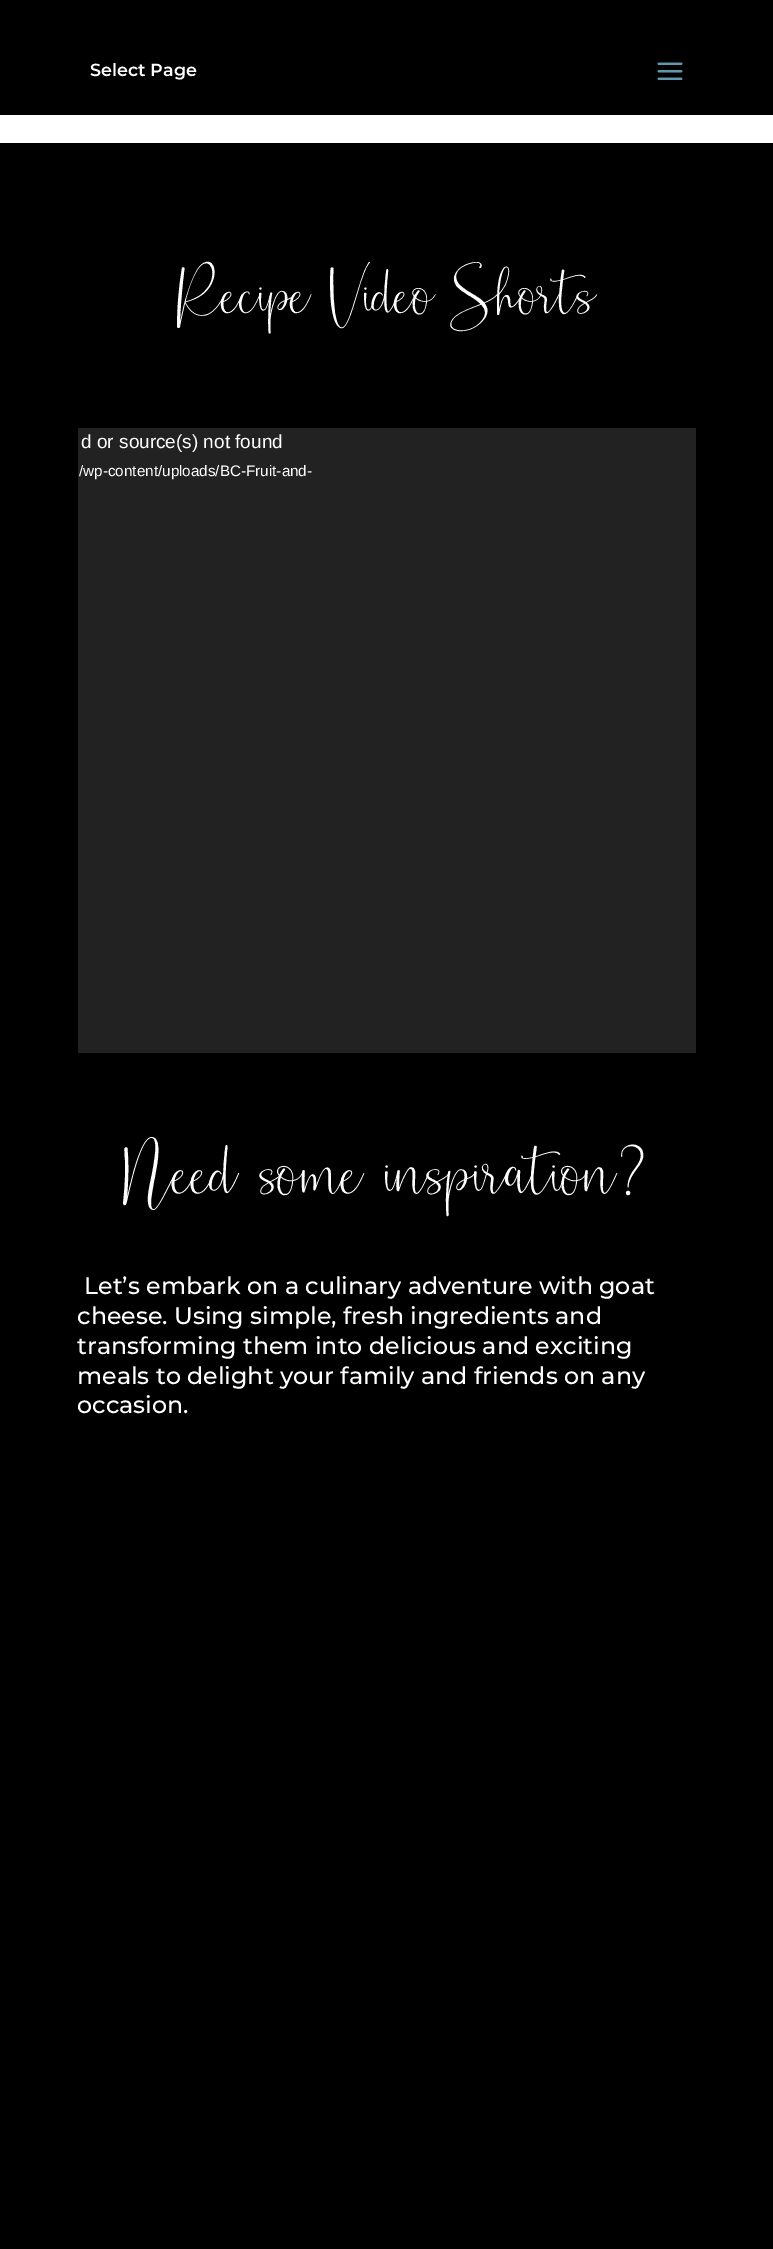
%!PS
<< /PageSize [773 2249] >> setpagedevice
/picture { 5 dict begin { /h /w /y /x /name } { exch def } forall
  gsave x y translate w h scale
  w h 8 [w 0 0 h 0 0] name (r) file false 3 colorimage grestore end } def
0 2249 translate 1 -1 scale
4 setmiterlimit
1 setgray
0 0 773 2249 rectfill
0 setgray
0 0 773 115 rectfill
/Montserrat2-Thin [17.5 0 0 -17.5 0 0] selectfont
1 setgray
90 76 moveto (Select Page) show
(img1.rgb) 657 62 26 18 picture
0 setgray
0 143 773 2106 rectfill
/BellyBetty-Regular [62.5 0 0 -62.5 0 0] selectfont
1 setgray
177 308 moveto (Recipe Video Shorts) show
0.133 setgray
78 428 618 625 rectfill
/LiberationSans-Regular [19 0 0 -19 0 0] selectfont
1 setgray
81 448 moveto (d or source\(s\) not found) show
/LiberationSans-Regular [15.25 0 0 -15.25 0 0] selectfont
79 476 moveto (/wp-content/uploads/BC-Fruit-and-) show
/BellyBetty-Regular [68.75 0 0 -68.75 0 0] selectfont
123 1188 moveto (Need some inspiration?) show
/Montserrat-Thin [23.75 0 0 -23.75 0 0] selectfont
84 1294 moveto (Let’s embark on a culinary adventure with goat) show
77 1324 moveto (cheese. Using simple, fresh ingredients and) show
77 1354 moveto (transforming them into delicious and exciting) show
77 1384 moveto (meals to delight your family and friends on any) show
77 1413 moveto (occasion.) show
showpage
